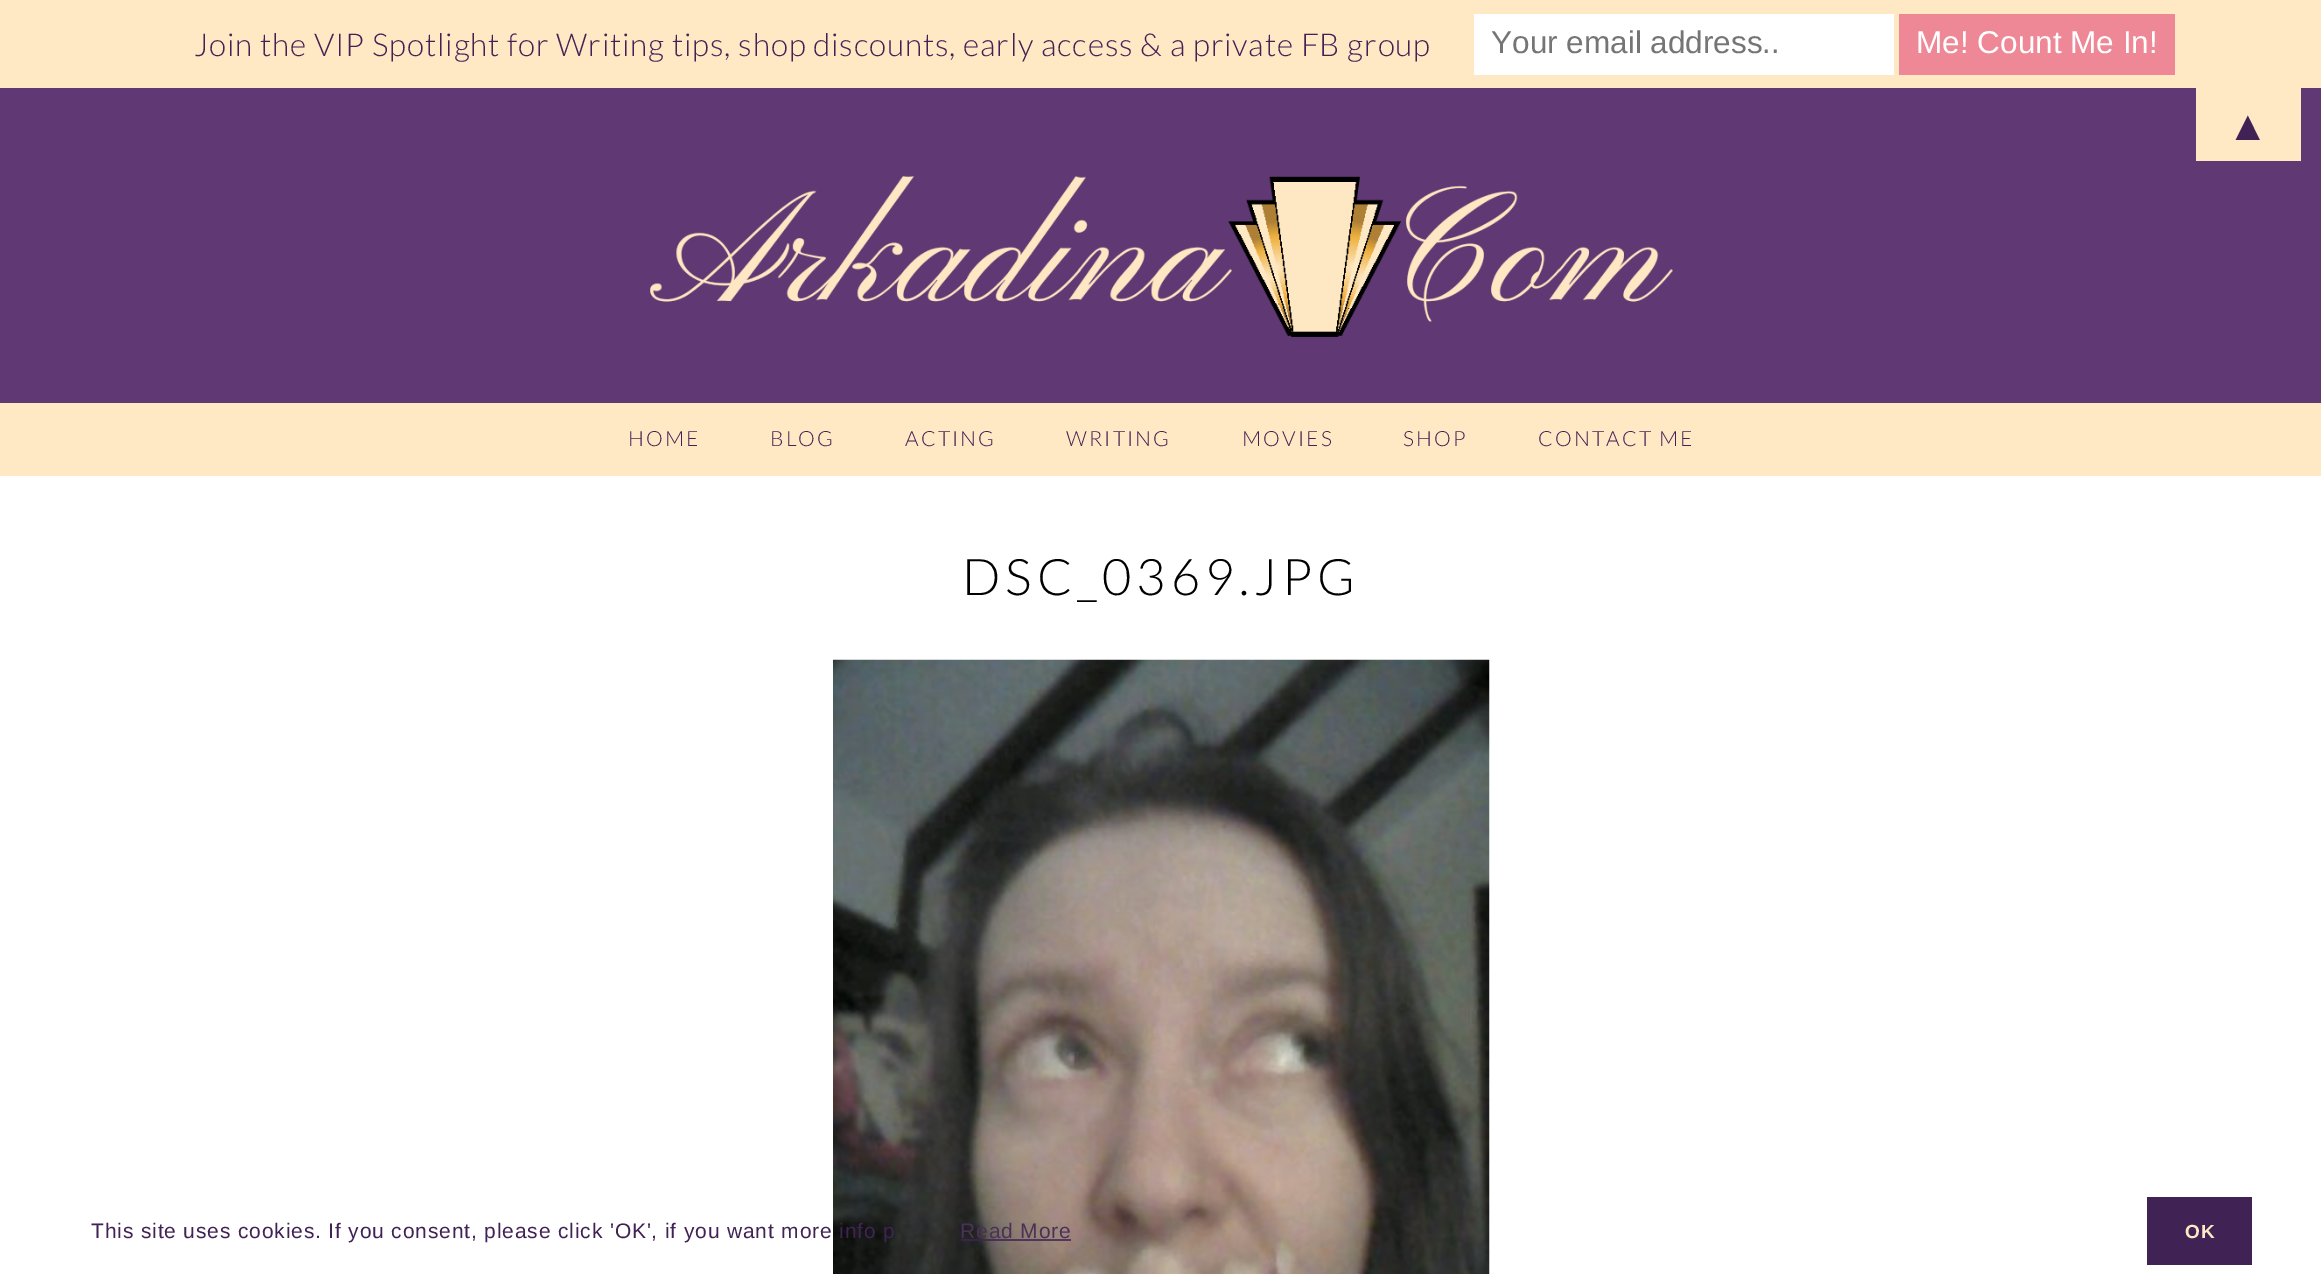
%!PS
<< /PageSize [2321 1274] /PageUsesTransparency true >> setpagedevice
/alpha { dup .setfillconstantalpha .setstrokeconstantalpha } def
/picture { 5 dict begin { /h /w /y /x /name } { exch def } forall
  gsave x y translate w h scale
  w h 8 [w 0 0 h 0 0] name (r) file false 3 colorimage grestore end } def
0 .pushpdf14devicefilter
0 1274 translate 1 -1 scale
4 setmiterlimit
1 setgray
0 0 2321 1274 rectfill
1 0.91 0.769 setrgbcolor
0 0 2321 88 rectfill
/Lato-Light [31.5 0 0 -31.5 0 0] selectfont
0.255 0.133 0.333 setrgbcolor
194 56 moveto 0.85 0 (Join the VIP Spotlight for Writing tips, shop discounts, early access & a private FB group) ashow
1 setgray
1474 14 420 61 rectfill
/LiberationSans-Regular [31.5 0 0 -31.5 0 0] selectfont
0.459 setgray
1491 53 moveto (Your email address..) show
0.933 0.529 0.588 setrgbcolor
1899 14 276 61 rectfill
1 setgray
1916 53 moveto (Me! Count Me In!) show
0.376 0.22 0.451 setrgbcolor
0 88 2321 315 rectfill
1 0.91 0.769 setrgbcolor
2196 88 105 73 rectfill
/LiberationSans-Regular [42 0 0 -42 0 0] selectfont
0.255 0.133 0.333 setrgbcolor
2227 140 moveto 0.85 0 (▲) ashow
(img1.rgb) 650 175 1023 162 picture
1 0.91 0.769 setrgbcolor
0 403 2321 73 rectfill
/Lato-Light [21 0 0 -21 0 0] selectfont
0.255 0.133 0.333 setrgbcolor
628 446 moveto 2.1 0 (HOME) ashow
770 446 moveto 2.1 0 (BLOG) ashow
905 446 moveto 2.1 0 (ACTING) ashow
1066 446 moveto 2.1 0 (WRITING) ashow
1242 446 moveto 2.1 0 (MOVIES) ashow
1403 446 moveto 2.1 0 (SHOP) ashow
1538 446 moveto 2.1 0 (CONTACT ME) ashow
/Lato-Light [50.5 0 0 -50.5 0 0] selectfont
0 setgray
962 595 moveto 5 0 (DSC_0369.JPG) ashow
(img2.rgb) 833 659 657 615 picture
/LiberationSans-Regular [21 0 0 -21 0 0] selectfont
0.255 0.133 0.333 setrgbcolor
91 1238 moveto 0.85 0 (This site uses cookies. If you consent, please click 'OK', if you want more info p) ashow
0.294 0.188 0.341 setrgbcolor
960 1238 moveto 0.85 0 (Read More) ashow
0.8 alpha
0.255 0.133 0.333 setrgbcolor
961 1239 110 2 rectfill
1 alpha
2147 1197 105 68 rectfill
/LiberationSans-Bold [19 0 0 -19 0 0] selectfont
1 0.91 0.769 setrgbcolor
2185 1238 moveto 0.85 0 (OK) ashow
.poppdf14devicefilter showpage
